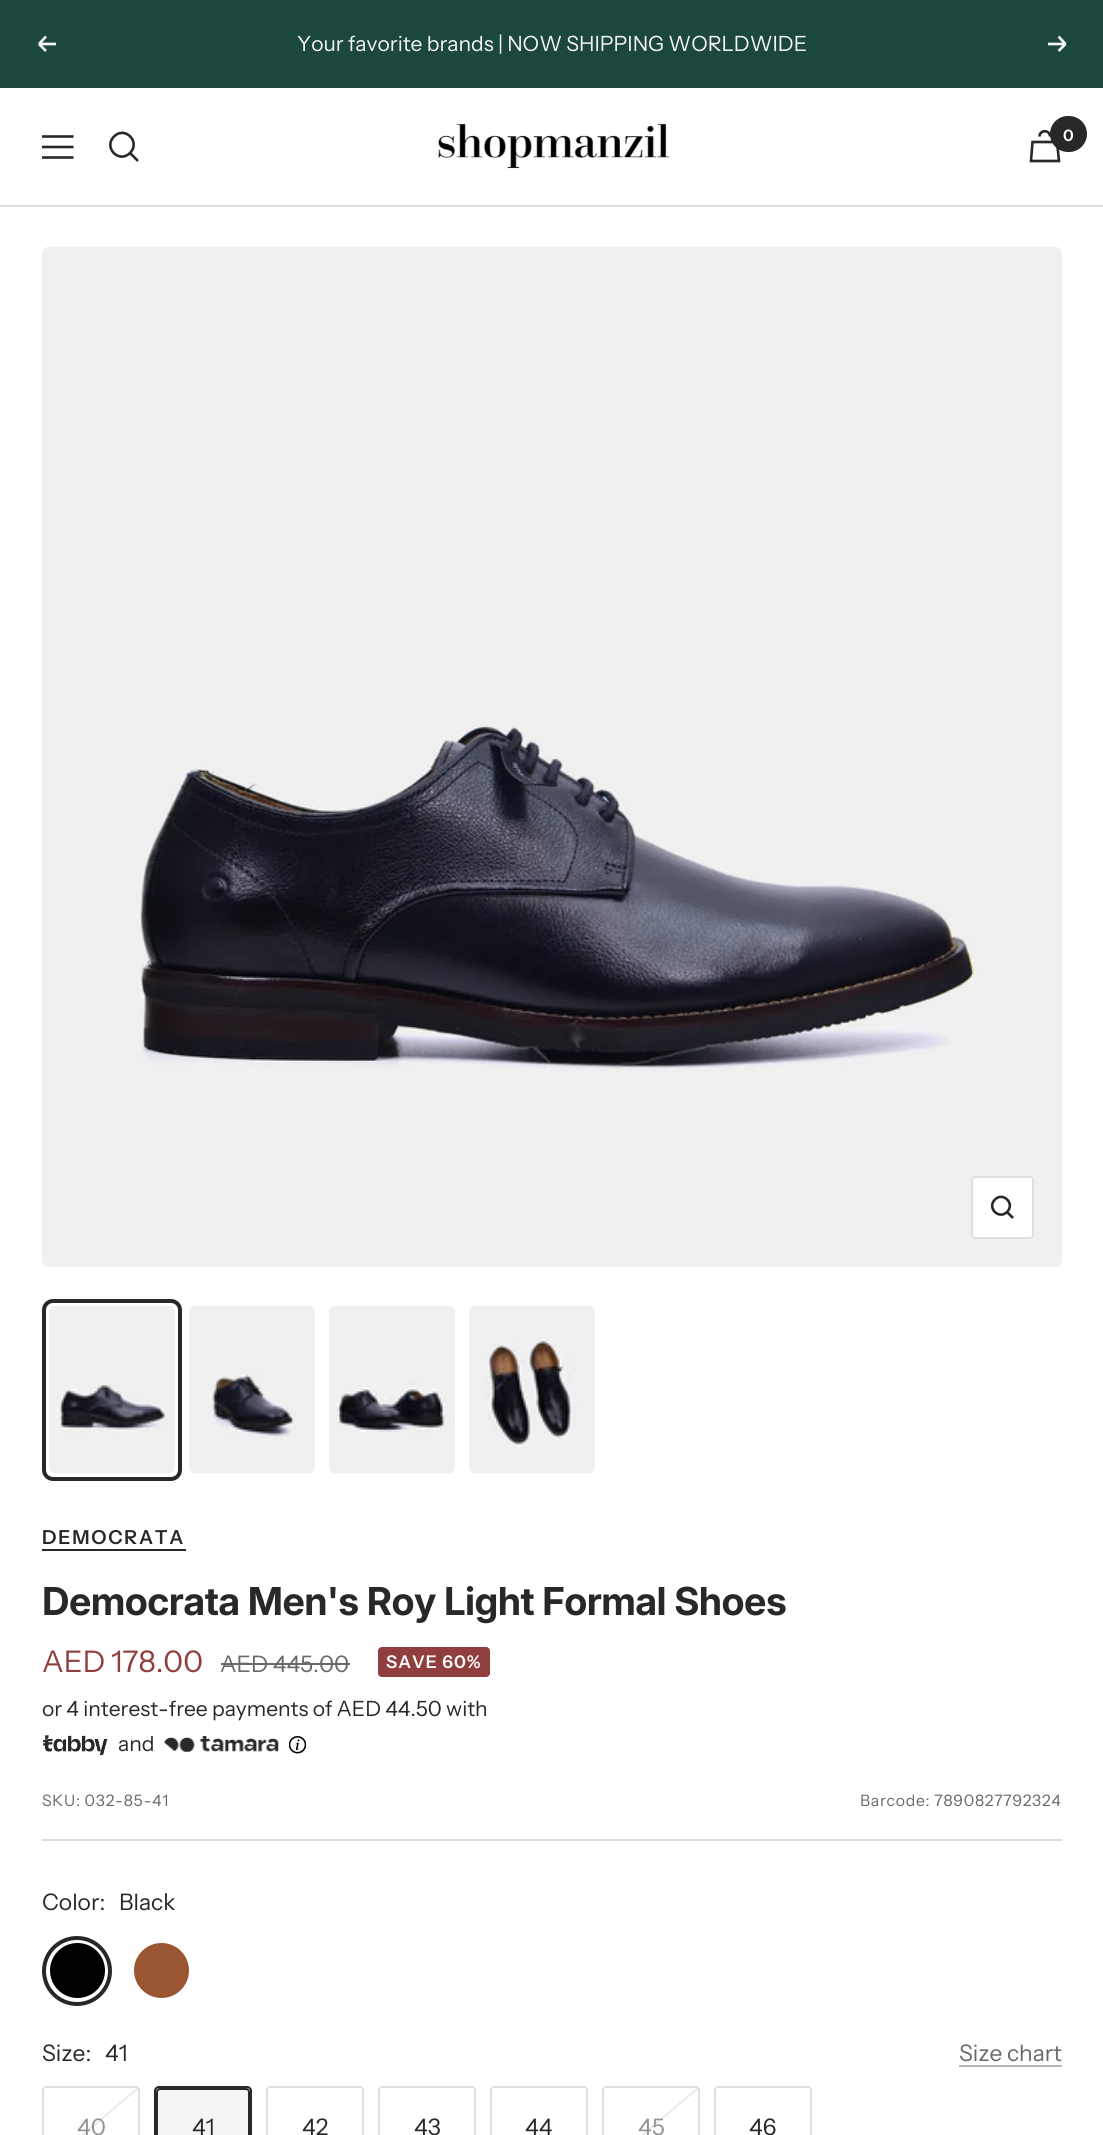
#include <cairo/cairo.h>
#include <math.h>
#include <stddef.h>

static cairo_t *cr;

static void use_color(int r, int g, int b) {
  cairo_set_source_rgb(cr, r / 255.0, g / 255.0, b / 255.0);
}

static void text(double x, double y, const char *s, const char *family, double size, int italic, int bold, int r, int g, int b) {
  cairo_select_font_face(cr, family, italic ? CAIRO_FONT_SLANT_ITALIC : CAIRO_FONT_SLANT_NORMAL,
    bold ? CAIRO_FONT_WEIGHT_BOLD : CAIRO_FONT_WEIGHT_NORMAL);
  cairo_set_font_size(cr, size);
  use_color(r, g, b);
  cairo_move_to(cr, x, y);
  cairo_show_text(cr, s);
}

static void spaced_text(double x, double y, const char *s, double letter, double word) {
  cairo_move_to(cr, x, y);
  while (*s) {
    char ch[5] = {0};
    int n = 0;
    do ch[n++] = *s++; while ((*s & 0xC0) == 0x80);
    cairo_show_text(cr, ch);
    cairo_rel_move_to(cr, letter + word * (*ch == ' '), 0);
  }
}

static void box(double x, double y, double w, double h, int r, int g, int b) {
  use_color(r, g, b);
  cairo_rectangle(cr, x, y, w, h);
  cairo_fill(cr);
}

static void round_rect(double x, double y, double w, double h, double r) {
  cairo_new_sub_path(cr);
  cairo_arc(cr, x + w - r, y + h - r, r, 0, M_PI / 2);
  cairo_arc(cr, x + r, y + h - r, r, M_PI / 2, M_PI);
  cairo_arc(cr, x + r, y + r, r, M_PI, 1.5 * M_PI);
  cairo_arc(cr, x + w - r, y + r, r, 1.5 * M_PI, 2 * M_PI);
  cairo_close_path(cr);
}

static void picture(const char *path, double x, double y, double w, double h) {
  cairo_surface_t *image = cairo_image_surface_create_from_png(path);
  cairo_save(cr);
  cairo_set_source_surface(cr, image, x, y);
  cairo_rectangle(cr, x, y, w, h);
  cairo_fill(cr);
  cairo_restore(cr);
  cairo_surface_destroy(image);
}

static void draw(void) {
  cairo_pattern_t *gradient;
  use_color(255, 255, 255);
  cairo_paint(cr);
  box(0, 0, 1103, 88, 28, 71, 63);
  cairo_new_path(cr);
  cairo_move_to(cr, 56, 44);
  cairo_line_to(cr, 39, 44);
  cairo_move_to(cr, 39, 44);
  cairo_line_to(cr, 46, 51);
  cairo_move_to(cr, 39, 44);
  cairo_line_to(cr, 46, 36.5);
  use_color(245, 245, 245);
  cairo_set_line_width(cr, 2.6);
  cairo_stroke(cr);
  cairo_new_path(cr);
  cairo_move_to(cr, 1048, 44);
  cairo_line_to(cr, 1065.5, 44);
  cairo_move_to(cr, 1065.5, 44);
  cairo_line_to(cr, 1058.5, 51);
  cairo_move_to(cr, 1065.5, 44);
  cairo_line_to(cr, 1058.5, 36.5);
  cairo_stroke(cr);
  box(0, 205, 1103, 2, 223, 223, 223);
  cairo_new_path(cr);
  cairo_move_to(cr, 42, 136.5);
  cairo_line_to(cr, 73.5, 136.5);
  cairo_move_to(cr, 42, 157.5);
  cairo_line_to(cr, 73.5, 157.5);
  cairo_close_path(cr);
  cairo_move_to(cr, 42, 147);
  cairo_line_to(cr, 73.5, 147);
  cairo_close_path(cr);
  use_color(40, 40, 40);
  cairo_stroke(cr);
  cairo_new_path(cr);
  cairo_move_to(cr, 130, 153);
  cairo_curve_to(cr, 141, 142, 125, 125.5, 114, 136.5);
  cairo_curve_to(cr, 103, 147.5, 119, 164, 130, 153);
  cairo_close_path(cr);
  cairo_move_to(cr, 130, 153);
  cairo_line_to(cr, 138, 161);
  cairo_stroke(cr);
  picture("img_01.png", 438, 122, 233, 47);
  cairo_new_path(cr);
  cairo_move_to(cr, 1032.5, 142);
  cairo_line_to(cr, 1057, 142);
  cairo_line_to(cr, 1059, 161);
  cairo_line_to(cr, 1031, 161);
  cairo_close_path(cr);
  cairo_move_to(cr, 1050, 136.5);
  cairo_curve_to(cr, 1050, 129.5, 1039.5, 129.5, 1039.5, 136.5);
  cairo_stroke(cr);
  round_rect(1050, 116, 37, 36, 18);
  cairo_fill(cr);
  picture("img_02.png", 42, 247, 1020, 1020);
  use_color(255, 255, 255);
  round_rect(972, 1177, 61, 61, 3);
  cairo_fill_preserve(cr);
  use_color(223, 223, 223);
  cairo_set_line_width(cr, 2);
  cairo_stroke(cr);
  cairo_new_path(cr);
  cairo_move_to(cr, 1007, 1212);
  cairo_curve_to(cr, 1015.5, 1203.5, 1003, 1191.5, 995, 1199.5);
  cairo_curve_to(cr, 986.5, 1208, 999, 1220, 1007, 1212);
  cairo_close_path(cr);
  cairo_move_to(cr, 1007, 1212);
  cairo_line_to(cr, 1013, 1218);
  use_color(40, 40, 40);
  cairo_set_line_width(cr, 2.6);
  cairo_stroke(cr);
  picture("img_03.png", 49, 1305, 126, 169);
  round_rect(44, 1301, 136, 178, 9);
  cairo_set_line_width(cr, 4);
  cairo_stroke(cr);
  picture("img_04.png", 189, 1305, 126, 169);
  picture("img_05.png", 329, 1305, 126, 169);
  picture("img_06.png", 469, 1305, 126, 169);
  box(42, 1839, 1020, 2, 223, 223, 223);
  box(42, 1549, 144, 2, 40, 40, 40);
  box(221, 1663, 129, 2, 105, 105, 105);
  use_color(145, 62, 62);
  round_rect(378, 1647, 112, 30, 4);
  cairo_fill(cr);
  picture("img_07.png", 43, 1735, 65, 21);
  picture("img_08.png", 164, 1736, 115, 16);
  picture("img_09.png", 289, 1736, 17, 18);
  use_color(0, 0, 0);
  cairo_arc(cr, 77, 1971, 32.5, 0, 2 * M_PI);
  cairo_fill_preserve(cr);
  use_color(255, 255, 255);
  cairo_set_line_width(cr, 5);
  cairo_stroke(cr);
  cairo_arc(cr, 77.5, 1970.5, 29.5, 0, 2 * M_PI);
  cairo_set_line_width(cr, 4);
  cairo_stroke(cr);
  cairo_arc(cr, 77, 1971, 33, 0, 2 * M_PI);
  use_color(40, 40, 40);
  cairo_stroke(cr);
  use_color(154, 86, 48);
  cairo_arc(cr, 161, 1971, 32.5, 0, 2 * M_PI);
  cairo_fill_preserve(cr);
  use_color(255, 255, 255);
  cairo_set_line_width(cr, 5);
  cairo_stroke(cr);
  cairo_arc(cr, 161.5, 1970.5, 29.5, 0, 2 * M_PI);
  cairo_set_line_width(cr, 4);
  cairo_stroke(cr);
  box(959, 2065, 103, 2, 180, 180, 180);
  gradient = cairo_pattern_create_linear(51, 2081, 131, 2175);
  cairo_pattern_add_color_stop_rgba(gradient, 0.49, 1, 1, 1, 1);
  cairo_pattern_add_color_stop_rgba(gradient, 0.5, 0.875, 0.875, 0.875, 1);
  cairo_pattern_add_color_stop_rgba(gradient, 0.51, 1, 1, 1, 1);
  cairo_set_source(cr, gradient);
  cairo_pattern_destroy(gradient);
  cairo_rectangle(cr, 82, 2088, 56, 47);
  cairo_fill(cr);
  round_rect(43, 2087, 96, 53, 3);
  use_color(223, 223, 223);
  cairo_set_line_width(cr, 2);
  cairo_stroke(cr);
  use_color(245, 245, 245);
  round_rect(155, 2087, 96, 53, 3);
  cairo_fill_preserve(cr);
  use_color(223, 223, 223);
  cairo_stroke(cr);
  round_rect(155, 2087, 96, 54, 4);
  use_color(40, 40, 40);
  cairo_stroke(cr);
  round_rect(157, 2089, 92, 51, 3);
  cairo_stroke(cr);
  round_rect(267, 2087, 96, 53, 3);
  use_color(223, 223, 223);
  cairo_stroke(cr);
  round_rect(379, 2087, 96, 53, 3);
  cairo_stroke(cr);
  round_rect(491, 2087, 96, 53, 3);
  cairo_stroke(cr);
  gradient = cairo_pattern_create_linear(611, 2081, 691, 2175);
  cairo_pattern_add_color_stop_rgba(gradient, 0.49, 1, 1, 1, 1);
  cairo_pattern_add_color_stop_rgba(gradient, 0.5, 0.875, 0.875, 0.875, 1);
  cairo_pattern_add_color_stop_rgba(gradient, 0.51, 1, 1, 1, 1);
  cairo_set_source(cr, gradient);
  cairo_pattern_destroy(gradient);
  cairo_rectangle(cr, 642, 2088, 56, 47);
  cairo_fill(cr);
  round_rect(603, 2087, 96, 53, 3);
  use_color(223, 223, 223);
  cairo_stroke(cr);
  round_rect(715, 2087, 96, 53, 3);
  cairo_stroke(cr);
  text(297, 51, "Your favorite brands | NOW SHIPPING WORLDWIDE", "Instrument Sans", 21, 0, 0, 245, 245, 245);
  text(1063, 141, "0", "Instrument Sans SemiBold", 15.75, 0, 0, 255, 255, 255);
  cairo_set_font_size(cr, 19.25);
  use_color(40, 40, 40);
  spaced_text(42, 1544, "DEMOCRATA", 1.75, 0);
  cairo_select_font_face(cr, "Inter", CAIRO_FONT_SLANT_NORMAL, CAIRO_FONT_WEIGHT_BOLD);
  cairo_set_font_size(cr, 38.5);
  spaced_text(42, 1615, "Democrata Men's Roy Light Formal Shoes", -0.55, 0);
  text(42, 1672, "AED 178.00", "Instrument Sans", 29.75, 0, 0, 145, 62, 62);
  text(220, 1672, "AED 445.00", "Instrument Sans", 22.75, 0, 0, 105, 105, 105);
  cairo_select_font_face(cr, "Instrument Sans SemiBold", CAIRO_FONT_SLANT_NORMAL, CAIRO_FONT_WEIGHT_NORMAL);
  cairo_set_font_size(cr, 17.5);
  use_color(255, 255, 255);
  spaced_text(386, 1668, "SAVE 60%", 1, 0);
  text(42, 1716, "or 4 interest-free payments of AED 44.50 with", "Instrument Sans", 21, 0, 0, 40, 40, 40);
  text(118, 1751, "and", "Instrument Sans", 21, 0, 0, 40, 40, 40);
  cairo_set_font_size(cr, 15.75);
  use_color(105, 105, 105);
  spaced_text(42, 1806, "SKU: 032-85-41", 0.75, 0);
  spaced_text(860, 1806, "Barcode: 7890827792324", 0.75, 0);
  text(42, 1910, "Color:", "Instrument Sans", 22.75, 0, 0, 40, 40, 40);
  text(119, 1910, "Black", "Instrument Sans", 22.75, 0, 0, 40, 40, 40);
  text(42, 2061, "Size:", "Instrument Sans", 22.75, 0, 0, 40, 40, 40);
  text(105, 2061, "41", "Instrument Sans", 22.75, 0, 0, 40, 40, 40);
  text(959, 2061, "Size chart", "Instrument Sans", 22.75, 0, 0, 105, 105, 105);
  text(77, 2135, "40", "Instrument Sans", 22.75, 0, 0, 146, 146, 146);
  text(192, 2135, "41", "Instrument Sans", 22.75, 0, 0, 40, 40, 40);
  text(302, 2135, "42", "Instrument Sans", 22.75, 0, 0, 40, 40, 40);
  text(414, 2135, "43", "Instrument Sans", 22.75, 0, 0, 40, 40, 40);
  text(525, 2135, "44", "Instrument Sans", 22.75, 0, 0, 40, 40, 40);
  text(638, 2135, "45", "Instrument Sans", 22.75, 0, 0, 146, 146, 146);
  text(749, 2135, "46", "Instrument Sans", 22.75, 0, 0, 40, 40, 40);
}

int main(void) {
  cairo_surface_t *surface = cairo_image_surface_create(CAIRO_FORMAT_RGB24, 1103, 2135);
  cr = cairo_create(surface);
  cairo_font_options_t *options = cairo_font_options_create();
  cairo_font_options_set_hint_metrics(options, CAIRO_HINT_METRICS_OFF);
  cairo_font_options_set_hint_style(options, CAIRO_HINT_STYLE_NONE);
  cairo_set_font_options(cr, options);
  cairo_set_miter_limit(cr, 4);
  draw();
  cairo_surface_write_to_png(surface, "out.png");
  cairo_font_options_destroy(options);
  cairo_destroy(cr);
  cairo_surface_destroy(surface);
  return 0;
}
